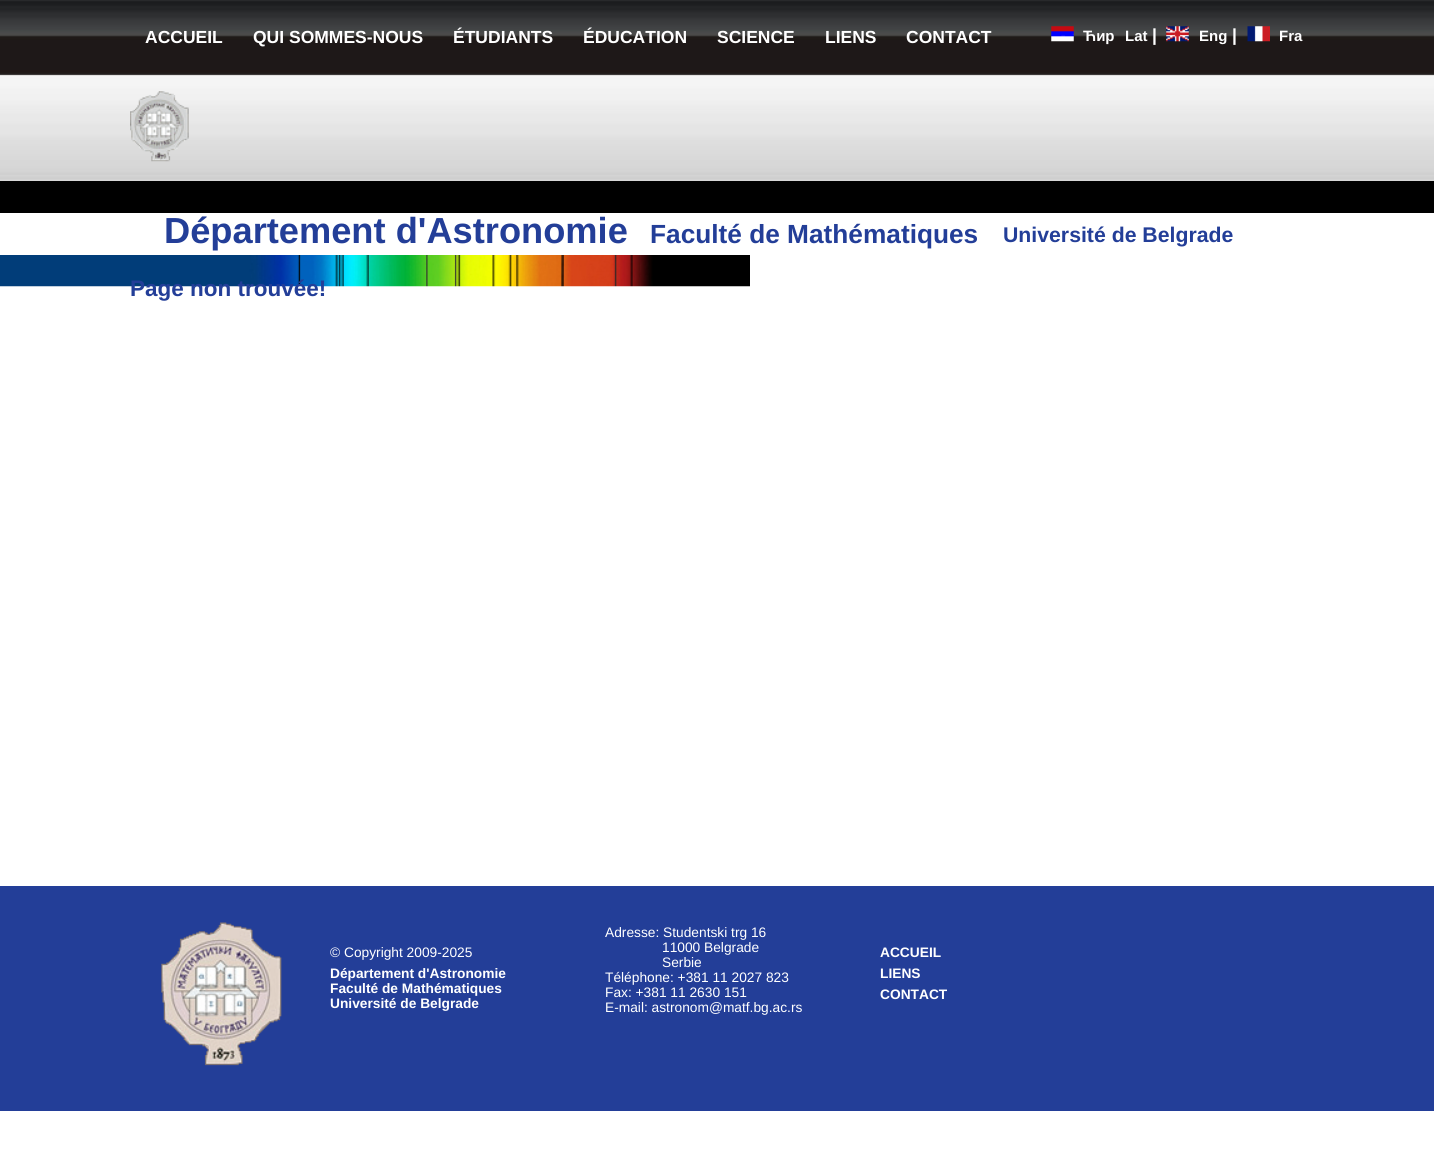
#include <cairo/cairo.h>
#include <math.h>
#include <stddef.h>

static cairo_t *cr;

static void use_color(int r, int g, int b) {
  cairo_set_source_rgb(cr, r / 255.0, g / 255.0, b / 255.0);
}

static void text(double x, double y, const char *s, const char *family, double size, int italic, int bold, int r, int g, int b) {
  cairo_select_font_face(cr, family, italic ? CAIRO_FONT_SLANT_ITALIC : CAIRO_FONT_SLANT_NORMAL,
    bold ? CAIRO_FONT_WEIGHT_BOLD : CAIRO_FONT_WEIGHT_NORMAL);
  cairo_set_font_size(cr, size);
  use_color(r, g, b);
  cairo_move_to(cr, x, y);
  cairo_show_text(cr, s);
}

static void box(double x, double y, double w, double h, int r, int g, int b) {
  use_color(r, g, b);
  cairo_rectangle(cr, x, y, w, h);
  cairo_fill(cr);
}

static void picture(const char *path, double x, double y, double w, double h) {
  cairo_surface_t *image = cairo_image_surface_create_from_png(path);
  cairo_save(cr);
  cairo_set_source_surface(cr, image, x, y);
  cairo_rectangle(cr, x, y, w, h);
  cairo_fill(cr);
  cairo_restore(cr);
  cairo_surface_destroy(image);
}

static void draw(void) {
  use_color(255, 255, 255);
  cairo_paint(cr);
  picture("img_01.png", 0, 0, 1434, 181);
  picture("img_02.png", 1051, 26, 23, 16);
  picture("img_03.png", 1166, 26, 23, 16);
  picture("img_04.png", 1247, 26, 23, 16);
  picture("img_05.png", 130, 91, 59, 71);
  box(0, 181, 1434, 32, 0, 0, 0);
  picture("img_06.png", 0, 255, 750, 32);
  box(0, 886, 1434, 225, 35, 62, 152);
  picture("img_07.png", 161, 922, 121, 144);
  text(145, 43, "ACCUEIL", "Liberation Sans", 17.5, 0, 1, 255, 255, 255);
  text(253, 43, "QUI SOMMES-NOUS", "Liberation Sans", 17.5, 0, 1, 255, 255, 255);
  text(453, 43, "ÉTUDIANTS", "Liberation Sans", 17.5, 0, 1, 255, 255, 255);
  text(583, 43, "ÉDUCATION", "Liberation Sans", 17.5, 0, 1, 255, 255, 255);
  text(717, 43, "SCIENCE", "Liberation Sans", 17.5, 0, 1, 255, 255, 255);
  text(825, 43, "LIENS", "Liberation Sans", 17.5, 0, 1, 255, 255, 255);
  text(906, 43, "CONTACT", "Liberation Sans", 17.5, 0, 1, 255, 255, 255);
  text(1083, 41, "Ћир", "Liberation Sans", 15, 0, 1, 255, 255, 255);
  text(1125, 41, "Lat", "Liberation Sans", 15, 0, 1, 255, 255, 255);
  text(1152, 41, "|", "Liberation Sans", 17.5, 0, 1, 255, 255, 255);
  text(1199, 41, "Eng", "Liberation Sans", 15, 0, 1, 255, 255, 255);
  text(1232, 41, "|", "Liberation Sans", 17.5, 0, 1, 255, 255, 255);
  text(1279, 41, "Fra", "Liberation Sans", 15, 0, 1, 255, 255, 255);
  text(164, 243, "Département d'Astronomie", "Liberation Sans", 36.25, 0, 1, 35, 62, 152);
  text(650, 243, "Faculté de Mathématiques", "Liberation Sans", 26.25, 0, 1, 35, 62, 152);
  text(1003, 242, "Université de Belgrade", "Liberation Sans", 21.25, 0, 1, 35, 62, 152);
  text(130, 296, "Page non trouvée!", "Liberation Sans", 22.5, 0, 1, 35, 62, 152);
  text(330, 957, "© Copyright 2009-2025", "Liberation Sans", 13.75, 0, 0, 255, 255, 255);
  text(330, 978, "Département d'Astronomie", "Liberation Sans", 13.75, 0, 1, 255, 255, 255);
  text(330, 993, "Faculté de Mathématiques", "Liberation Sans", 13.75, 0, 1, 255, 255, 255);
  text(330, 1008, "Université de Belgrade", "Liberation Sans", 13.75, 0, 1, 255, 255, 255);
  text(605, 937, "Adresse: Studentski trg 16", "Liberation Sans", 13.75, 0, 0, 255, 255, 255);
  text(662, 952, "11000 Belgrade", "Liberation Sans", 13.75, 0, 0, 255, 255, 255);
  text(662, 967, "Serbie", "Liberation Sans", 13.75, 0, 0, 255, 255, 255);
  text(605, 982, "Téléphone: +381 11 2027 823", "Liberation Sans", 13.75, 0, 0, 255, 255, 255);
  text(605, 997, "Fax: +381 11 2630 151", "Liberation Sans", 13.75, 0, 0, 255, 255, 255);
  text(605, 1012, "E-mail: astronom@matf.bg.ac.rs", "Liberation Sans", 13.75, 0, 0, 255, 255, 255);
  text(880, 957, "ACCUEIL", "Liberation Sans", 13.75, 0, 1, 255, 255, 255);
  text(880, 978, "LIENS", "Liberation Sans", 13.75, 0, 1, 255, 255, 255);
  text(880, 999, "CONTACT", "Liberation Sans", 13.75, 0, 1, 255, 255, 255);
}

int main(void) {
  cairo_surface_t *surface = cairo_image_surface_create(CAIRO_FORMAT_RGB24, 1434, 1171);
  cr = cairo_create(surface);
  cairo_font_options_t *options = cairo_font_options_create();
  cairo_font_options_set_hint_metrics(options, CAIRO_HINT_METRICS_OFF);
  cairo_font_options_set_hint_style(options, CAIRO_HINT_STYLE_NONE);
  cairo_set_font_options(cr, options);
  cairo_set_miter_limit(cr, 4);
  draw();
  cairo_surface_write_to_png(surface, "out.png");
  cairo_font_options_destroy(options);
  cairo_destroy(cr);
  cairo_surface_destroy(surface);
  return 0;
}
